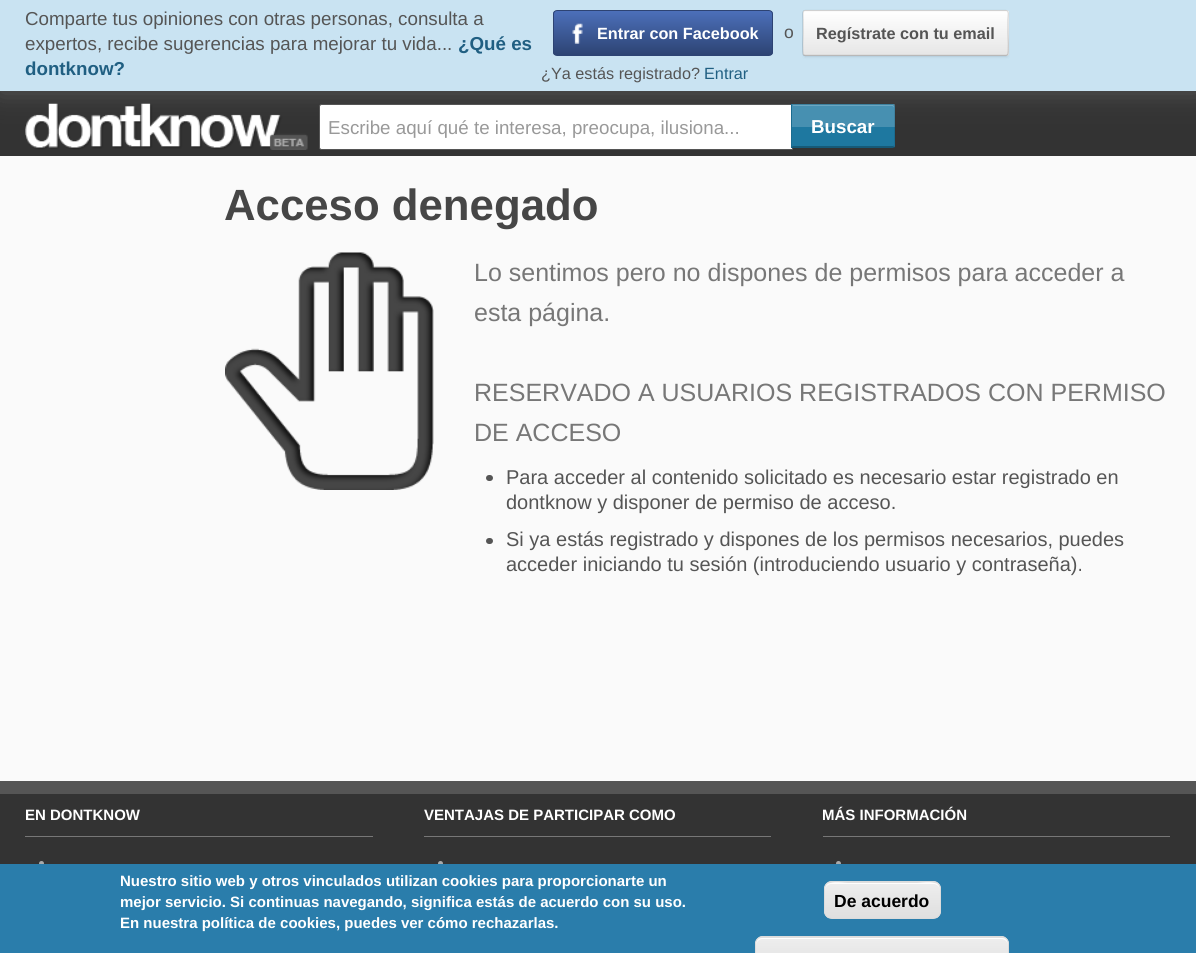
#include <cairo/cairo.h>
#include <math.h>
#include <stddef.h>

static cairo_t *cr;

static void use_color(int r, int g, int b) {
  cairo_set_source_rgb(cr, r / 255.0, g / 255.0, b / 255.0);
}

static void text(double x, double y, const char *s, const char *family, double size, int italic, int bold, int r, int g, int b) {
  cairo_select_font_face(cr, family, italic ? CAIRO_FONT_SLANT_ITALIC : CAIRO_FONT_SLANT_NORMAL,
    bold ? CAIRO_FONT_WEIGHT_BOLD : CAIRO_FONT_WEIGHT_NORMAL);
  cairo_set_font_size(cr, size);
  use_color(r, g, b);
  cairo_move_to(cr, x, y);
  cairo_show_text(cr, s);
}

static void box(double x, double y, double w, double h, int r, int g, int b) {
  use_color(r, g, b);
  cairo_rectangle(cr, x, y, w, h);
  cairo_fill(cr);
}

static void round_rect(double x, double y, double w, double h, double r) {
  cairo_new_sub_path(cr);
  cairo_arc(cr, x + w - r, y + h - r, r, 0, M_PI / 2);
  cairo_arc(cr, x + r, y + h - r, r, M_PI / 2, M_PI);
  cairo_arc(cr, x + r, y + r, r, M_PI, 1.5 * M_PI);
  cairo_arc(cr, x + w - r, y + r, r, 1.5 * M_PI, 2 * M_PI);
  cairo_close_path(cr);
}

static void shadow(double x, double y, double w, double h, double r, double blur, double alpha) {
  cairo_push_group_with_content(cr, CAIRO_CONTENT_ALPHA);
  cairo_set_operator(cr, CAIRO_OPERATOR_SOURCE);
  for (int i = 15; i >= -15 && fmin(w, h) + blur * i / 3 > 0; i -= 2) {
    double e = blur * i / 6;
    cairo_set_source_rgba(cr, 0, 0, 0, alpha * erfc((i - 1) / 8.5) / 2);
    round_rect(x - e, y - e, w + 2 * e, h + 2 * e, fmax(0, fmin(r + e + blur * .6, fmin(w, h) / 2 + e)));
    cairo_fill(cr);
  }
  cairo_pattern_t *soft = cairo_pop_group(cr);
  cairo_mask(cr, soft);
  cairo_pattern_destroy(soft);
}

static void picture(const char *path, double x, double y, double w, double h) {
  cairo_surface_t *image = cairo_image_surface_create_from_png(path);
  cairo_save(cr);
  cairo_set_source_surface(cr, image, x, y);
  cairo_rectangle(cr, x, y, w, h);
  cairo_fill(cr);
  cairo_restore(cr);
  cairo_surface_destroy(image);
}

static void draw(void) {
  cairo_pattern_t *gradient;
  use_color(250, 250, 250);
  cairo_paint(cr);
  box(0, 91, 1196, 65, 51, 51, 51);
  use_color(85, 85, 85);
  shadow(0, -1, 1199, 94, 0, 12.5, 1);
  box(0, 0, 1196, 91, 201, 227, 242);
  cairo_save(cr);
  round_rect(553, 10, 220, 46, 4);
  cairo_clip(cr);
  gradient = cairo_pattern_create_linear(663, 11, 663, 55);
  cairo_pattern_add_color_stop_rgba(gradient, 0, 0.298, 0.439, 0.729, 1);
  cairo_pattern_add_color_stop_rgba(gradient, 1, 0.176, 0.263, 0.451, 1);
  cairo_set_source(cr, gradient);
  cairo_pattern_destroy(gradient);
  cairo_rectangle(cr, 553, 11, 220, 44);
  cairo_fill(cr);
  cairo_restore(cr);
  round_rect(553.5, 10.5, 219, 45, 3.5);
  use_color(45, 67, 115);
  cairo_set_line_width(cr, 1);
  cairo_stroke(cr);
  picture("img_01.png", 572, 23, 11, 21);
  use_color(0, 0, 0);
  shadow(803, 11, 206, 47, 2.5, 1, 0.05);
  use_color(245, 245, 245);
  round_rect(803, 10, 206, 46, 2.5);
  cairo_fill(cr);
  cairo_save(cr);
  round_rect(803, 10, 206, 46, 2.5);
  cairo_clip(cr);
  gradient = cairo_pattern_create_linear(906, 11, 906, 55);
  cairo_pattern_add_color_stop_rgba(gradient, 0, 1, 1, 1, 1);
  cairo_pattern_add_color_stop_rgba(gradient, 1, 0.902, 0.902, 0.902, 1);
  cairo_set_source(cr, gradient);
  cairo_pattern_destroy(gradient);
  cairo_rectangle(cr, 803, 11, 206, 44);
  cairo_fill(cr);
  cairo_restore(cr);
  cairo_new_path(cr);
  cairo_move_to(cr, 1007.5, 55);
  cairo_line_to(cr, 1006, 55.5);
  cairo_line_to(cr, 805, 55.5);
  cairo_line_to(cr, 803.5, 55);
  cairo_set_source_rgba(cr, 0, 0, 0, 0.25);
  cairo_set_line_width(cr, 1.2);
  cairo_stroke(cr);
  cairo_new_path(cr);
  cairo_move_to(cr, 803.5, 55);
  cairo_curve_to(cr, 802, 53.5, 803, 36, 803, 33);
  cairo_line_to(cr, 803, 19.5);
  cairo_curve_to(cr, 803, 16, 802, 10.5, 805, 10.5);
  cairo_line_to(cr, 1006, 10.5);
  cairo_curve_to(cr, 1009.5, 10.5, 1008, 16, 1008, 19.5);
  cairo_line_to(cr, 1008, 33);
  cairo_curve_to(cr, 1008, 36, 1009, 53.5, 1007.5, 55);
  cairo_set_source_rgba(cr, 0, 0, 0, 0.15);
  cairo_stroke(cr);
  picture("img_02.png", 25, 103, 283, 47);
  use_color(255, 255, 255);
  cairo_new_path(cr);
  cairo_move_to(cr, 321.5, 104.5);
  cairo_line_to(cr, 792.5, 104.5);
  cairo_line_to(cr, 792.5, 149.5);
  cairo_line_to(cr, 321.5, 149.5);
  cairo_curve_to(cr, 320.5, 149.5, 319.5, 148.5, 319.5, 147.5);
  cairo_line_to(cr, 319.5, 106.5);
  cairo_curve_to(cr, 319.5, 105.5, 320.5, 104.5, 321.5, 104.5);
  cairo_close_path(cr);
  cairo_fill_preserve(cr);
  use_color(85, 85, 85);
  cairo_set_line_width(cr, 1);
  cairo_stroke(cr);
  use_color(30, 120, 160);
  cairo_new_path(cr);
  cairo_move_to(cr, 791, 104);
  cairo_line_to(cr, 892.5, 104);
  cairo_curve_to(cr, 894, 104, 895, 105, 895, 106.5);
  cairo_line_to(cr, 895, 145.5);
  cairo_curve_to(cr, 895, 147, 894, 148, 892.5, 148);
  cairo_line_to(cr, 791, 148);
  cairo_close_path(cr);
  cairo_fill(cr);
  cairo_set_source_rgba(cr, 1, 1, 1, 0.18);
  cairo_rectangle(cr, 792, 104, 103, 23);
  cairo_fill(cr);
  use_color(107, 166, 193);
  cairo_new_path(cr);
  cairo_move_to(cr, 793, 105);
  cairo_line_to(cr, 793, 106);
  cairo_line_to(cr, 892, 106);
  cairo_curve_to(cr, 893, 106, 894, 107, 894, 108);
  cairo_curve_to(cr, 894, 107, 894, 105, 893, 105);
  cairo_close_path(cr);
  cairo_fill(cr);
  use_color(63, 130, 159);
  cairo_new_path(cr);
  cairo_move_to(cr, 894, 105);
  cairo_line_to(cr, 892, 104);
  cairo_line_to(cr, 792, 104);
  cairo_line_to(cr, 792, 105);
  cairo_line_to(cr, 892, 105);
  cairo_line_to(cr, 893, 105);
  cairo_close_path(cr);
  cairo_fill(cr);
  cairo_set_source_rgba(cr, 0, 0, 0, 0.1);
  cairo_new_path(cr);
  cairo_move_to(cr, 894, 105);
  cairo_line_to(cr, 895, 105);
  cairo_curve_to(cr, 895, 106, 896, 145, 894, 147);
  cairo_line_to(cr, 893, 146);
  cairo_line_to(cr, 894, 145);
  cairo_line_to(cr, 894, 106);
  cairo_line_to(cr, 893, 105);
  cairo_close_path(cr);
  cairo_fill(cr);
  cairo_set_source_rgba(cr, 0, 0, 0, 0.25);
  cairo_new_path(cr);
  cairo_move_to(cr, 894, 147);
  cairo_line_to(cr, 894, 148);
  cairo_line_to(cr, 791, 148);
  cairo_line_to(cr, 793, 146);
  cairo_line_to(cr, 893, 146);
  cairo_close_path(cr);
  cairo_fill(cr);
  cairo_set_source_rgba(cr, 0, 0, 0, 0.1);
  cairo_new_path(cr);
  cairo_move_to(cr, 792, 105);
  cairo_line_to(cr, 791, 104);
  cairo_line_to(cr, 791, 148);
  cairo_line_to(cr, 793, 146);
  cairo_line_to(cr, 792, 146);
  cairo_close_path(cr);
  cairo_fill(cr);
  picture("img_03.png", 225, 252, 209, 238);
  use_color(85, 85, 85);
  round_rect(486, 475, 7, 6, 3);
  cairo_fill(cr);
  round_rect(486, 538, 7, 6, 3);
  cairo_fill(cr);
  box(0, 781, 1196, 13, 85, 85, 85);
  box(0, 794, 1196, 70, 51, 51, 51);
  box(25, 836, 348, 1, 119, 119, 119);
  use_color(170, 170, 170);
  cairo_arc(cr, 41.5, 863.5, 2.5, 0, 2 * M_PI);
  cairo_fill(cr);
  box(424, 836, 347, 1, 119, 119, 119);
  use_color(170, 170, 170);
  cairo_arc(cr, 440.5, 863.5, 2.5, 0, 2 * M_PI);
  cairo_fill(cr);
  box(823, 836, 347, 1, 119, 119, 119);
  use_color(170, 170, 170);
  cairo_arc(cr, 838.5, 863.5, 2.5, 0, 2 * M_PI);
  cairo_fill(cr);
  box(0, 864, 1196, 89, 42, 125, 171);
  cairo_save(cr);
  round_rect(824, 881, 117, 38, 8);
  cairo_clip(cr);
  gradient = cairo_pattern_create_linear(825, 848, 825, 883);
  cairo_pattern_add_color_stop_rgba(gradient, 0.05, 0.929, 0.929, 0.929, 1);
  cairo_pattern_add_color_stop_rgba(gradient, 1, 0.875, 0.875, 0.875, 1);
  cairo_set_source(cr, gradient);
  cairo_pattern_destroy(gradient);
  cairo_rectangle(cr, 824, 881, 117, 2);
  cairo_fill(cr);
  gradient = cairo_pattern_create_linear(825, 883, 825, 918);
  cairo_pattern_add_color_stop_rgba(gradient, 0.05, 0.929, 0.929, 0.929, 1);
  cairo_pattern_add_color_stop_rgba(gradient, 1, 0.875, 0.875, 0.875, 1);
  cairo_set_source(cr, gradient);
  cairo_pattern_destroy(gradient);
  cairo_rectangle(cr, 824, 883, 117, 35);
  cairo_fill(cr);
  cairo_restore(cr);
  use_color(255, 255, 255);
  cairo_new_path(cr);
  cairo_move_to(cr, 831, 884);
  cairo_line_to(cr, 934, 884);
  cairo_curve_to(cr, 937, 884, 940, 887, 940, 890);
  cairo_curve_to(cr, 940, 879, 923, 883, 917, 883);
  cairo_line_to(cr, 848, 883);
  cairo_curve_to(cr, 842, 883, 825, 879, 825, 890);
  cairo_curve_to(cr, 825, 887, 828, 884, 831, 884);
  cairo_close_path(cr);
  cairo_fill(cr);
  round_rect(824.5, 881.5, 116, 37, 7.5);
  use_color(220, 220, 220);
  cairo_stroke(cr);
  cairo_save(cr);
  round_rect(755, 936, 254, 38, 8);
  cairo_clip(cr);
  gradient = cairo_pattern_create_linear(756, 903, 756, 938);
  cairo_pattern_add_color_stop_rgba(gradient, 0.05, 0.929, 0.929, 0.929, 1);
  cairo_pattern_add_color_stop_rgba(gradient, 1, 0.875, 0.875, 0.875, 1);
  cairo_set_source(cr, gradient);
  cairo_pattern_destroy(gradient);
  cairo_rectangle(cr, 755, 936, 254, 2);
  cairo_fill(cr);
  gradient = cairo_pattern_create_linear(756, 938, 756, 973);
  cairo_pattern_add_color_stop_rgba(gradient, 0.05, 0.929, 0.929, 0.929, 1);
  cairo_pattern_add_color_stop_rgba(gradient, 1, 0.875, 0.875, 0.875, 1);
  cairo_set_source(cr, gradient);
  cairo_pattern_destroy(gradient);
  cairo_rectangle(cr, 755, 938, 254, 15);
  cairo_fill(cr);
  cairo_restore(cr);
  use_color(255, 255, 255);
  cairo_new_path(cr);
  cairo_move_to(cr, 762, 939);
  cairo_line_to(cr, 1001, 939);
  cairo_curve_to(cr, 1005, 939, 1008, 942, 1008, 945);
  cairo_line_to(cr, 1008, 944);
  cairo_curve_to(cr, 1008, 941, 1005, 938, 1002, 938);
  cairo_line_to(cr, 762, 938);
  cairo_curve_to(cr, 759, 938, 756, 941, 756, 944);
  cairo_line_to(cr, 756, 945);
  cairo_curve_to(cr, 756, 942, 759, 939, 762, 939);
  cairo_close_path(cr);
  cairo_fill(cr);
  round_rect(755.5, 936.5, 253, 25, 7.5);
  use_color(220, 220, 220);
  cairo_stroke(cr);
  text(25, 25, "Comparte tus opiniones con otras personas, consulta a", "Liberation Sans", 18.75, 0, 0, 85, 85, 85);
  text(25, 50, "expertos, recibe sugerencias para mejorar tu vida...", "Liberation Sans", 18.75, 0, 0, 85, 85, 85);
  text(458, 50, "¿Qué es", "Liberation Sans", 18.75, 0, 1, 32, 95, 130);
  text(25, 75, "dontknow?", "Liberation Sans", 18.75, 0, 1, 32, 95, 130);
  text(597, 39, "Entrar con Facebook", "Liberation Sans", 16.25, 0, 1, 255, 255, 255);
  text(784, 38, "o", "Liberation Sans", 17.5, 0, 0, 85, 85, 85);
  text(816, 39, "Regístrate con tu email", "Liberation Sans", 16.25, 0, 1, 85, 85, 85);
  text(541, 79, "¿Ya estás registrado?", "Liberation Sans", 16.25, 0, 0, 85, 85, 85);
  text(704, 79, "Entrar", "Liberation Sans", 16.25, 0, 0, 32, 95, 130);
  text(328, 134, "Escribe aquí qué te interesa, preocupa, ilusiona...", "Liberation Sans", 18.75, 0, 0, 153, 153, 153);
  text(811, 133, "Buscar", "Liberation Sans", 18.75, 0, 1, 255, 255, 255);
  text(224, 220, "Acceso denegado", "Liberation Sans", 43.75, 0, 1, 70, 70, 70);
  text(474, 281, "Lo sentimos pero no dispones de permisos para acceder a", "Liberation Sans", 25, 0, 0, 119, 119, 119);
  text(474, 321, "esta página.", "Liberation Sans", 25, 0, 0, 119, 119, 119);
  text(474, 401, "RESERVADO A USUARIOS REGISTRADOS CON PERMISO", "Liberation Sans", 25, 0, 0, 119, 119, 119);
  text(474, 441, "DE ACCESO", "Liberation Sans", 25, 0, 0, 119, 119, 119);
  text(506, 484, "Para acceder al contenido solicitado es necesario estar registrado en", "Liberation Sans", 20, 0, 0, 85, 85, 85);
  text(506, 509, "dontknow y disponer de permiso de acceso.", "Liberation Sans", 20, 0, 0, 85, 85, 85);
  text(506, 546, "Si ya estás registrado y dispones de los permisos necesarios, puedes", "Liberation Sans", 20, 0, 0, 85, 85, 85);
  text(506, 571, "acceder iniciando tu sesión (introduciendo usuario y contraseña).", "Liberation Sans", 20, 0, 0, 85, 85, 85);
  text(25, 820, "EN DONTKNOW", "Liberation Sans", 15, 0, 1, 255, 255, 255);
  text(424, 820, "VENTAJAS DE PARTICIPAR COMO", "Liberation Sans", 15, 0, 1, 255, 255, 255);
  text(822, 820, "MÁS INFORMACIÓN", "Liberation Sans", 15, 0, 1, 255, 255, 255);
  text(120, 886, "Nuestro sitio web y otros vinculados utilizan cookies para proporcionarte un", "Liberation Sans", 15, 0, 1, 255, 255, 255);
  text(120, 907, "mejor servicio. Si continuas navegando, significa estás de acuerdo con su uso.", "Liberation Sans", 15, 0, 1, 255, 255, 255);
  text(120, 928, "En nuestra política de cookies, puedes ver cómo rechazarlas.", "Liberation Sans", 15, 0, 1, 255, 255, 255);
  text(834, 907, "De acuerdo", "Liberation Sans", 17.5, 0, 1, 0, 0, 0);
}

int main(void) {
  cairo_surface_t *surface = cairo_image_surface_create(CAIRO_FORMAT_RGB24, 1196, 953);
  cr = cairo_create(surface);
  cairo_font_options_t *options = cairo_font_options_create();
  cairo_font_options_set_hint_metrics(options, CAIRO_HINT_METRICS_OFF);
  cairo_font_options_set_hint_style(options, CAIRO_HINT_STYLE_NONE);
  cairo_set_font_options(cr, options);
  cairo_set_miter_limit(cr, 4);
  draw();
  cairo_surface_write_to_png(surface, "out.png");
  cairo_font_options_destroy(options);
  cairo_destroy(cr);
  cairo_surface_destroy(surface);
  return 0;
}
